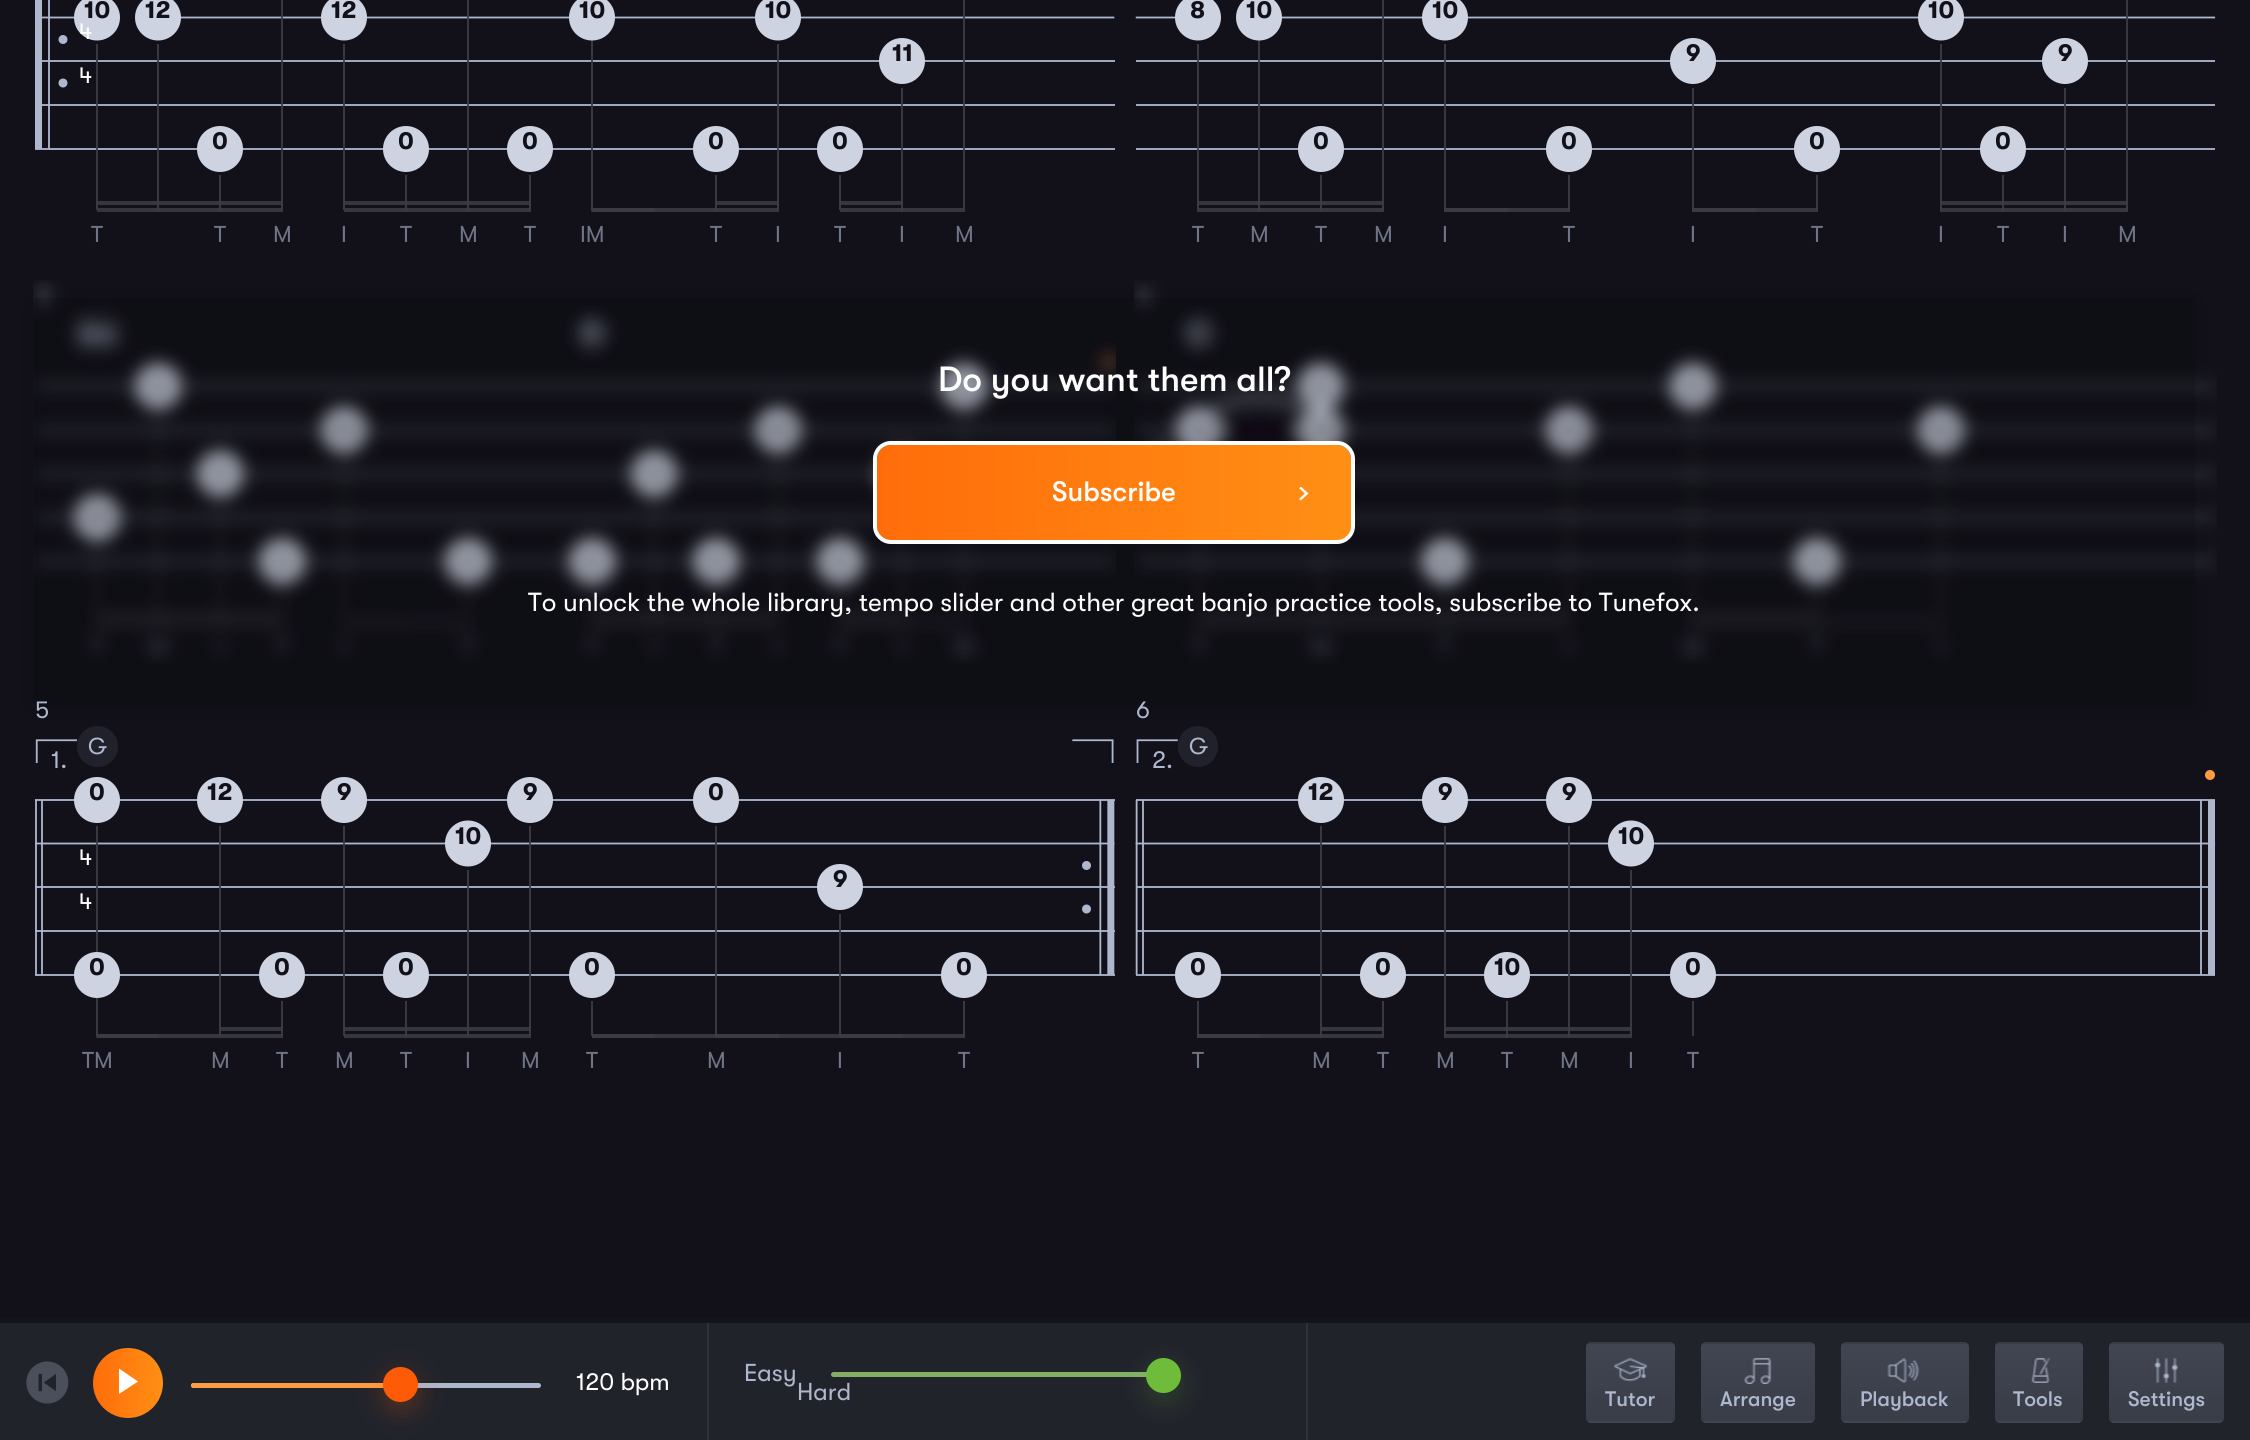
#include <cairo/cairo.h>
#include <math.h>
#include <stddef.h>

static cairo_t *cr;

static void use_color(int r, int g, int b) {
  cairo_set_source_rgb(cr, r / 255.0, g / 255.0, b / 255.0);
}

static void text(double x, double y, const char *s, const char *family, double size, int italic, int bold, int r, int g, int b) {
  cairo_select_font_face(cr, family, italic ? CAIRO_FONT_SLANT_ITALIC : CAIRO_FONT_SLANT_NORMAL,
    bold ? CAIRO_FONT_WEIGHT_BOLD : CAIRO_FONT_WEIGHT_NORMAL);
  cairo_set_font_size(cr, size);
  use_color(r, g, b);
  cairo_move_to(cr, x, y);
  cairo_show_text(cr, s);
}

static void box(double x, double y, double w, double h, int r, int g, int b) {
  use_color(r, g, b);
  cairo_rectangle(cr, x, y, w, h);
  cairo_fill(cr);
}

static void round_rect(double x, double y, double w, double h, double r) {
  cairo_new_sub_path(cr);
  cairo_arc(cr, x + w - r, y + h - r, r, 0, M_PI / 2);
  cairo_arc(cr, x + r, y + h - r, r, M_PI / 2, M_PI);
  cairo_arc(cr, x + r, y + r, r, M_PI, 1.5 * M_PI);
  cairo_arc(cr, x + w - r, y + r, r, 1.5 * M_PI, 2 * M_PI);
  cairo_close_path(cr);
}

static void shadow(double x, double y, double w, double h, double r, double blur, double alpha) {
  cairo_push_group_with_content(cr, CAIRO_CONTENT_ALPHA);
  cairo_set_operator(cr, CAIRO_OPERATOR_SOURCE);
  for (int i = 15; i >= -15 && fmin(w, h) + blur * i / 3 > 0; i -= 2) {
    double e = blur * i / 6;
    cairo_set_source_rgba(cr, 0, 0, 0, alpha * erfc((i - 1) / 8.5) / 2);
    round_rect(x - e, y - e, w + 2 * e, h + 2 * e, fmax(0, fmin(r + e + blur * .6, fmin(w, h) / 2 + e)));
    cairo_fill(cr);
  }
  cairo_pattern_t *soft = cairo_pop_group(cr);
  cairo_mask(cr, soft);
  cairo_pattern_destroy(soft);
}

static void picture(const char *path, double x, double y, double w, double h) {
  cairo_surface_t *image = cairo_image_surface_create_from_png(path);
  cairo_save(cr);
  cairo_set_source_surface(cr, image, x, y);
  cairo_rectangle(cr, x, y, w, h);
  cairo_fill(cr);
  cairo_restore(cr);
  cairo_surface_destroy(image);
}

static void draw(void) {
  cairo_pattern_t *gradient;
  use_color(18, 17, 26);
  cairo_paint(cr);
  picture("img_01.png", 35, 0, 1080, 212);
  picture("img_02.png", 1135, 0, 1081, 212);
  picture("img_03.png", 1134, 280, 1083, 384);
  picture("img_04.png", 33, 280, 1083, 384);
  picture("img_06.png", 35, 726, 1080, 312);
  picture("img_07.png", 1135, 726, 1081, 312);
  cairo_save(cr);
  cairo_set_fill_rule(cr, CAIRO_FILL_RULE_EVEN_ODD);
  cairo_new_path(cr);
  cairo_move_to(cr, 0, 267);
  cairo_line_to(cr, 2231, 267);
  cairo_line_to(cr, 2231, 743);
  cairo_line_to(cr, 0, 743);
  cairo_close_path(cr);
  cairo_move_to(cr, 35, 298);
  cairo_line_to(cr, 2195, 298);
  cairo_line_to(cr, 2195, 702);
  cairo_line_to(cr, 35, 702);
  cairo_close_path(cr);
  cairo_clip(cr);
  use_color(0, 0, 0);
  shadow(35, 303, 2160, 404, 0, 11.5, 0.2);
  cairo_restore(cr);
  box(0, 1323, 2250, 117, 33, 35, 43);
  box(0, 1318, 2250, 5, 20, 21, 26);
  picture("img_08.png", 26, 1361, 43, 43);
  gradient = cairo_pattern_create_linear(93, 1383, 163, 1383);
  cairo_pattern_add_color_stop_rgba(gradient, 0, 1, 0.427, 0.039, 1);
  cairo_pattern_add_color_stop_rgba(gradient, 1, 1, 0.561, 0.082, 1);
  cairo_set_source(cr, gradient);
  cairo_pattern_destroy(gradient);
  cairo_arc(cr, 128, 1383, 35, 0, 2 * M_PI);
  cairo_fill(cr);
  use_color(255, 255, 255);
  cairo_set_fill_rule(cr, CAIRO_FILL_RULE_EVEN_ODD);
  cairo_new_path(cr);
  cairo_move_to(cr, 119, 1368.5);
  cairo_line_to(cr, 138, 1381.5);
  cairo_line_to(cr, 119, 1394);
  cairo_close_path(cr);
  cairo_fill(cr);
  use_color(173, 183, 206);
  round_rect(191, 1383, 350, 5, 2.5);
  cairo_fill(cr);
  use_color(255, 156, 65);
  round_rect(191, 1383, 210, 5, 2.5);
  cairo_fill(cr);
  use_color(254, 91, 6);
  shadow(382, 1374, 38, 38, 19, 12, 0.2);
  use_color(254, 91, 6);
  cairo_arc(cr, 400.5, 1384.5, 17.5, 0, 2 * M_PI);
  cairo_fill(cr);
  box(707, 1323, 2, 117, 47, 50, 59);
  use_color(131, 175, 101);
  round_rect(831, 1372, 333, 5, 2.5);
  cairo_fill(cr);
  use_color(110, 188, 57);
  shadow(1145, 1365, 38, 39, 19, 12, 0.15);
  use_color(110, 188, 57);
  cairo_arc(cr, 1163.5, 1375.5, 17.5, 0, 2 * M_PI);
  cairo_fill(cr);
  box(1306, 1323, 2, 117, 47, 50, 59);
  cairo_save(cr);
  cairo_set_fill_rule(cr, CAIRO_FILL_RULE_WINDING);
  round_rect(1586, 1342, 89, 81, 5);
  cairo_clip(cr);
  gradient = cairo_pattern_create_linear(1630, 1344, 1630, 1267);
  cairo_pattern_add_color_stop_rgba(gradient, 0, 0.224, 0.239, 0.282, 1);
  cairo_pattern_add_color_stop_rgba(gradient, 1, 0.255, 0.271, 0.318, 1);
  cairo_set_source(cr, gradient);
  cairo_pattern_destroy(gradient);
  cairo_rectangle(cr, 1586, 1342, 89, 2);
  cairo_fill(cr);
  gradient = cairo_pattern_create_linear(1630, 1421, 1630, 1344);
  cairo_pattern_add_color_stop_rgba(gradient, 0, 0.224, 0.239, 0.282, 1);
  cairo_pattern_add_color_stop_rgba(gradient, 1, 0.255, 0.271, 0.318, 1);
  cairo_set_source(cr, gradient);
  cairo_pattern_destroy(gradient);
  cairo_rectangle(cr, 1586, 1344, 89, 77);
  cairo_fill(cr);
  gradient = cairo_pattern_create_linear(1630, 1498, 1630, 1421);
  cairo_pattern_add_color_stop_rgba(gradient, 0, 0.224, 0.239, 0.282, 1);
  cairo_pattern_add_color_stop_rgba(gradient, 1, 0.255, 0.271, 0.318, 1);
  cairo_set_source(cr, gradient);
  cairo_pattern_destroy(gradient);
  cairo_rectangle(cr, 1586, 1421, 89, 2);
  cairo_fill(cr);
  cairo_restore(cr);
  picture("img_09.png", 1614, 1358, 34, 24);
  cairo_save(cr);
  cairo_set_fill_rule(cr, CAIRO_FILL_RULE_WINDING);
  round_rect(1701, 1342, 114, 81, 5);
  cairo_clip(cr);
  gradient = cairo_pattern_create_linear(1758, 1344, 1758, 1267);
  cairo_pattern_add_color_stop_rgba(gradient, 0, 0.224, 0.239, 0.282, 1);
  cairo_pattern_add_color_stop_rgba(gradient, 1, 0.255, 0.271, 0.318, 1);
  cairo_set_source(cr, gradient);
  cairo_pattern_destroy(gradient);
  cairo_rectangle(cr, 1701, 1342, 114, 2);
  cairo_fill(cr);
  gradient = cairo_pattern_create_linear(1758, 1421, 1758, 1344);
  cairo_pattern_add_color_stop_rgba(gradient, 0, 0.224, 0.239, 0.282, 1);
  cairo_pattern_add_color_stop_rgba(gradient, 1, 0.255, 0.271, 0.318, 1);
  cairo_set_source(cr, gradient);
  cairo_pattern_destroy(gradient);
  cairo_rectangle(cr, 1701, 1344, 114, 77);
  cairo_fill(cr);
  gradient = cairo_pattern_create_linear(1758, 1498, 1758, 1421);
  cairo_pattern_add_color_stop_rgba(gradient, 0, 0.224, 0.239, 0.282, 1);
  cairo_pattern_add_color_stop_rgba(gradient, 1, 0.255, 0.271, 0.318, 1);
  cairo_set_source(cr, gradient);
  cairo_pattern_destroy(gradient);
  cairo_rectangle(cr, 1701, 1421, 114, 2);
  cairo_fill(cr);
  cairo_restore(cr);
  picture("img_10.png", 1744, 1358, 28, 26);
  cairo_save(cr);
  cairo_set_fill_rule(cr, CAIRO_FILL_RULE_WINDING);
  round_rect(1841, 1342, 128, 81, 5);
  cairo_clip(cr);
  gradient = cairo_pattern_create_linear(1905, 1344, 1905, 1267);
  cairo_pattern_add_color_stop_rgba(gradient, 0, 0.224, 0.239, 0.282, 1);
  cairo_pattern_add_color_stop_rgba(gradient, 1, 0.255, 0.271, 0.318, 1);
  cairo_set_source(cr, gradient);
  cairo_pattern_destroy(gradient);
  cairo_rectangle(cr, 1841, 1342, 128, 2);
  cairo_fill(cr);
  gradient = cairo_pattern_create_linear(1905, 1421, 1905, 1344);
  cairo_pattern_add_color_stop_rgba(gradient, 0, 0.224, 0.239, 0.282, 1);
  cairo_pattern_add_color_stop_rgba(gradient, 1, 0.255, 0.271, 0.318, 1);
  cairo_set_source(cr, gradient);
  cairo_pattern_destroy(gradient);
  cairo_rectangle(cr, 1841, 1344, 128, 77);
  cairo_fill(cr);
  gradient = cairo_pattern_create_linear(1905, 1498, 1905, 1421);
  cairo_pattern_add_color_stop_rgba(gradient, 0, 0.224, 0.239, 0.282, 1);
  cairo_pattern_add_color_stop_rgba(gradient, 1, 0.255, 0.271, 0.318, 1);
  cairo_set_source(cr, gradient);
  cairo_pattern_destroy(gradient);
  cairo_rectangle(cr, 1841, 1421, 128, 2);
  cairo_fill(cr);
  cairo_restore(cr);
  picture("img_11.png", 1887, 1358, 33, 25);
  cairo_save(cr);
  cairo_set_fill_rule(cr, CAIRO_FILL_RULE_WINDING);
  round_rect(1995, 1342, 88, 81, 5);
  cairo_clip(cr);
  gradient = cairo_pattern_create_linear(2039, 1344, 2039, 1267);
  cairo_pattern_add_color_stop_rgba(gradient, 0, 0.224, 0.239, 0.282, 1);
  cairo_pattern_add_color_stop_rgba(gradient, 1, 0.255, 0.271, 0.318, 1);
  cairo_set_source(cr, gradient);
  cairo_pattern_destroy(gradient);
  cairo_rectangle(cr, 1995, 1342, 88, 2);
  cairo_fill(cr);
  gradient = cairo_pattern_create_linear(2039, 1421, 2039, 1344);
  cairo_pattern_add_color_stop_rgba(gradient, 0, 0.224, 0.239, 0.282, 1);
  cairo_pattern_add_color_stop_rgba(gradient, 1, 0.255, 0.271, 0.318, 1);
  cairo_set_source(cr, gradient);
  cairo_pattern_destroy(gradient);
  cairo_rectangle(cr, 1995, 1344, 88, 77);
  cairo_fill(cr);
  gradient = cairo_pattern_create_linear(2039, 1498, 2039, 1421);
  cairo_pattern_add_color_stop_rgba(gradient, 0, 0.224, 0.239, 0.282, 1);
  cairo_pattern_add_color_stop_rgba(gradient, 1, 0.255, 0.271, 0.318, 1);
  cairo_set_source(cr, gradient);
  cairo_pattern_destroy(gradient);
  cairo_rectangle(cr, 1995, 1421, 88, 2);
  cairo_fill(cr);
  cairo_restore(cr);
  picture("img_12.png", 2031, 1358, 19, 25);
  cairo_save(cr);
  cairo_set_fill_rule(cr, CAIRO_FILL_RULE_WINDING);
  round_rect(2109, 1342, 115, 81, 5);
  cairo_clip(cr);
  gradient = cairo_pattern_create_linear(2167, 1344, 2167, 1267);
  cairo_pattern_add_color_stop_rgba(gradient, 0, 0.224, 0.239, 0.282, 1);
  cairo_pattern_add_color_stop_rgba(gradient, 1, 0.255, 0.271, 0.318, 1);
  cairo_set_source(cr, gradient);
  cairo_pattern_destroy(gradient);
  cairo_rectangle(cr, 2109, 1342, 115, 2);
  cairo_fill(cr);
  gradient = cairo_pattern_create_linear(2167, 1421, 2167, 1344);
  cairo_pattern_add_color_stop_rgba(gradient, 0, 0.224, 0.239, 0.282, 1);
  cairo_pattern_add_color_stop_rgba(gradient, 1, 0.255, 0.271, 0.318, 1);
  cairo_set_source(cr, gradient);
  cairo_pattern_destroy(gradient);
  cairo_rectangle(cr, 2109, 1344, 115, 77);
  cairo_fill(cr);
  gradient = cairo_pattern_create_linear(2167, 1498, 2167, 1421);
  cairo_pattern_add_color_stop_rgba(gradient, 0, 0.224, 0.239, 0.282, 1);
  cairo_pattern_add_color_stop_rgba(gradient, 1, 0.255, 0.271, 0.318, 1);
  cairo_set_source(cr, gradient);
  cairo_pattern_destroy(gradient);
  cairo_rectangle(cr, 2109, 1421, 115, 2);
  cairo_fill(cr);
  cairo_restore(cr);
  picture("img_13.png", 2154, 1358, 24, 25);
  text(84, 18, "10", "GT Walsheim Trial", 24.5, 0, 1, 18, 17, 26);
  text(145, 18, "12", "GT Walsheim Trial", 24.5, 0, 1, 18, 17, 26);
  text(331, 18, "12", "GT Walsheim Trial", 24.5, 0, 1, 18, 17, 26);
  text(579, 18, "10", "GT Walsheim Trial", 24.5, 0, 1, 18, 17, 26);
  text(765, 18, "10", "GT Walsheim Trial", 24.5, 0, 1, 18, 17, 26);
  text(79, 39, "4", "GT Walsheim", 23, 0, 0, 255, 255, 255);
  text(892, 61, "11", "GT Walsheim Trial", 24.5, 0, 1, 18, 17, 26);
  text(79, 83, "4", "GT Walsheim", 23, 0, 0, 255, 255, 255);
  text(212, 149, "0", "GT Walsheim Trial", 24.5, 0, 1, 18, 17, 26);
  text(398, 149, "0", "GT Walsheim Trial", 24.5, 0, 1, 18, 17, 26);
  text(522, 149, "0", "GT Walsheim Trial", 24.5, 0, 1, 18, 17, 26);
  text(708, 149, "0", "GT Walsheim Trial", 24.5, 0, 1, 18, 17, 26);
  text(832, 149, "0", "GT Walsheim Trial", 24.5, 0, 1, 18, 17, 26);
  text(91, 242, "T", "GT Walsheim", 23, 0, 0, 111, 116, 134);
  text(214, 242, "T", "GT Walsheim", 23, 0, 0, 111, 116, 134);
  text(273, 242, "M", "GT Walsheim", 23, 0, 0, 111, 116, 134);
  text(341, 242, "I", "GT Walsheim", 23, 0, 0, 111, 116, 134);
  text(400, 242, "T", "GT Walsheim", 23, 0, 0, 111, 116, 134);
  text(459, 242, "M", "GT Walsheim", 23, 0, 0, 111, 116, 134);
  text(524, 242, "T", "GT Walsheim", 23, 0, 0, 111, 116, 134);
  text(580, 242, "IM", "GT Walsheim", 23, 0, 0, 111, 116, 134);
  text(710, 242, "T", "GT Walsheim", 23, 0, 0, 111, 116, 134);
  text(775, 242, "I", "GT Walsheim", 23, 0, 0, 111, 116, 134);
  text(834, 242, "T", "GT Walsheim", 23, 0, 0, 111, 116, 134);
  text(899, 242, "I", "GT Walsheim", 23, 0, 0, 111, 116, 134);
  text(955, 242, "M", "GT Walsheim", 23, 0, 0, 111, 116, 134);
  text(1190, 18, "8", "GT Walsheim Trial", 24.5, 0, 1, 18, 17, 26);
  text(1246, 18, "10", "GT Walsheim Trial", 24.5, 0, 1, 18, 17, 26);
  text(1432, 18, "10", "GT Walsheim Trial", 24.5, 0, 1, 18, 17, 26);
  text(1928, 18, "10", "GT Walsheim Trial", 24.5, 0, 1, 18, 17, 26);
  text(1686, 61, "9", "GT Walsheim Trial", 24.5, 0, 1, 18, 17, 26);
  text(2058, 61, "9", "GT Walsheim Trial", 24.5, 0, 1, 18, 17, 26);
  text(1313, 149, "0", "GT Walsheim Trial", 24.5, 0, 1, 18, 17, 26);
  text(1561, 149, "0", "GT Walsheim Trial", 24.5, 0, 1, 18, 17, 26);
  text(1809, 149, "0", "GT Walsheim Trial", 24.5, 0, 1, 18, 17, 26);
  text(1995, 149, "0", "GT Walsheim Trial", 24.5, 0, 1, 18, 17, 26);
  text(1192, 242, "T", "GT Walsheim", 23, 0, 0, 111, 116, 134);
  text(1250, 242, "M", "GT Walsheim", 23, 0, 0, 111, 116, 134);
  text(1315, 242, "T", "GT Walsheim", 23, 0, 0, 111, 116, 134);
  text(1374, 242, "M", "GT Walsheim", 23, 0, 0, 111, 116, 134);
  text(1442, 242, "I", "GT Walsheim", 23, 0, 0, 111, 116, 134);
  text(1563, 242, "T", "GT Walsheim", 23, 0, 0, 111, 116, 134);
  text(1690, 242, "I", "GT Walsheim", 23, 0, 0, 111, 116, 134);
  text(1811, 242, "T", "GT Walsheim", 23, 0, 0, 111, 116, 134);
  text(1938, 242, "I", "GT Walsheim", 23, 0, 0, 111, 116, 134);
  text(1997, 242, "T", "GT Walsheim", 23, 0, 0, 111, 116, 134);
  text(2062, 242, "I", "GT Walsheim", 23, 0, 0, 111, 116, 134);
  text(2118, 242, "M", "GT Walsheim", 23, 0, 0, 111, 116, 134);
  text(35, 718, "5", "GT Walsheim", 24.5, 0, 0, 173, 183, 206);
  text(88, 754, "G", "GT Walsheim", 23, 0, 0, 173, 183, 206);
  text(51, 768, "1.", "GT Walsheim", 24.5, 0, 0, 173, 183, 206);
  text(89, 800, "0", "GT Walsheim Trial", 24.5, 0, 1, 18, 17, 26);
  text(207, 800, "12", "GT Walsheim Trial", 24.5, 0, 1, 18, 17, 26);
  text(337, 800, "9", "GT Walsheim Trial", 24.5, 0, 1, 18, 17, 26);
  text(523, 800, "9", "GT Walsheim Trial", 24.5, 0, 1, 18, 17, 26);
  text(708, 800, "0", "GT Walsheim Trial", 24.5, 0, 1, 18, 17, 26);
  text(455, 844, "10", "GT Walsheim Trial", 24.5, 0, 1, 18, 17, 26);
  text(79, 865, "4", "GT Walsheim", 23, 0, 0, 255, 255, 255);
  text(833, 887, "9", "GT Walsheim Trial", 24.5, 0, 1, 18, 17, 26);
  text(79, 909, "4", "GT Walsheim", 23, 0, 0, 255, 255, 255);
  text(89, 975, "0", "GT Walsheim Trial", 24.5, 0, 1, 18, 17, 26);
  text(274, 975, "0", "GT Walsheim Trial", 24.5, 0, 1, 18, 17, 26);
  text(398, 975, "0", "GT Walsheim Trial", 24.5, 0, 1, 18, 17, 26);
  text(584, 975, "0", "GT Walsheim Trial", 24.5, 0, 1, 18, 17, 26);
  text(956, 975, "0", "GT Walsheim Trial", 24.5, 0, 1, 18, 17, 26);
  text(82, 1068, "TM", "GT Walsheim", 23, 0, 0, 111, 116, 134);
  text(211, 1068, "M", "GT Walsheim", 23, 0, 0, 111, 116, 134);
  text(276, 1068, "T", "GT Walsheim", 23, 0, 0, 111, 116, 134);
  text(335, 1068, "M", "GT Walsheim", 23, 0, 0, 111, 116, 134);
  text(400, 1068, "T", "GT Walsheim", 23, 0, 0, 111, 116, 134);
  text(465, 1068, "I", "GT Walsheim", 23, 0, 0, 111, 116, 134);
  text(521, 1068, "M", "GT Walsheim", 23, 0, 0, 111, 116, 134);
  text(586, 1068, "T", "GT Walsheim", 23, 0, 0, 111, 116, 134);
  text(707, 1068, "M", "GT Walsheim", 23, 0, 0, 111, 116, 134);
  text(837, 1068, "I", "GT Walsheim", 23, 0, 0, 111, 116, 134);
  text(958, 1068, "T", "GT Walsheim", 23, 0, 0, 111, 116, 134);
  text(1136, 718, "6", "GT Walsheim", 24.5, 0, 0, 173, 183, 206);
  cairo_set_source_rgba(cr, 0, 0, 0, 0.2);
  cairo_rectangle(cr, 35, 298, 2160, 404);
  cairo_fill(cr);
  text(528, 611, "To unlock the whole library, tempo slider and other great banjo practice tools, subscribe to Tunefox.", "GT Walsheim", 26.25, 0, 0, 255, 255, 255);
  gradient = cairo_pattern_create_linear(877, 493, 1351, 493);
  cairo_pattern_add_color_stop_rgba(gradient, 0, 1, 0.427, 0.039, 1);
  cairo_pattern_add_color_stop_rgba(gradient, 1, 1, 0.561, 0.082, 1);
  cairo_set_source(cr, gradient);
  cairo_pattern_destroy(gradient);
  round_rect(877, 445, 474, 96, 14);
  cairo_fill(cr);
  picture("img_05.png", 1299, 487, 10, 14);
  round_rect(875, 443, 478, 99, 16);
  use_color(255, 255, 255);
  cairo_set_line_width(cr, 4);
  cairo_stroke(cr);
  text(1052, 501, "Subscribe", "GT Walsheim Medium", 28, 0, 0, 255, 255, 255);
  text(938, 391, "Do you want them all?", "GT Walsheim Medium", 35, 0, 0, 255, 255, 255);
  text(1189, 754, "G", "GT Walsheim", 23, 0, 0, 173, 183, 206);
  text(1152, 768, "2.", "GT Walsheim", 24.5, 0, 0, 173, 183, 206);
  text(1308, 800, "12", "GT Walsheim Trial", 24.5, 0, 1, 18, 17, 26);
  text(1438, 800, "9", "GT Walsheim Trial", 24.5, 0, 1, 18, 17, 26);
  text(1562, 800, "9", "GT Walsheim Trial", 24.5, 0, 1, 18, 17, 26);
  text(1618, 844, "10", "GT Walsheim Trial", 24.5, 0, 1, 18, 17, 26);
  text(1190, 975, "0", "GT Walsheim Trial", 24.5, 0, 1, 18, 17, 26);
  text(1375, 975, "0", "GT Walsheim Trial", 24.5, 0, 1, 18, 17, 26);
  text(1494, 975, "10", "GT Walsheim Trial", 24.5, 0, 1, 18, 17, 26);
  text(1685, 975, "0", "GT Walsheim Trial", 24.5, 0, 1, 18, 17, 26);
  text(1192, 1068, "T", "GT Walsheim", 23, 0, 0, 111, 116, 134);
  text(1312, 1068, "M", "GT Walsheim", 23, 0, 0, 111, 116, 134);
  text(1377, 1068, "T", "GT Walsheim", 23, 0, 0, 111, 116, 134);
  text(1436, 1068, "M", "GT Walsheim", 23, 0, 0, 111, 116, 134);
  text(1501, 1068, "T", "GT Walsheim", 23, 0, 0, 111, 116, 134);
  text(1560, 1068, "M", "GT Walsheim", 23, 0, 0, 111, 116, 134);
  text(1628, 1068, "I", "GT Walsheim", 23, 0, 0, 111, 116, 134);
  text(1687, 1068, "T", "GT Walsheim", 23, 0, 0, 111, 116, 134);
  text(576, 1390, "120 bpm", "GT Walsheim", 24.5, 0, 0, 255, 255, 255);
  text(744, 1381, "Easy", "GT Walsheim", 24.5, 0, 0, 173, 183, 206);
  text(797, 1400, "Hard", "GT Walsheim", 24.5, 0, 0, 173, 183, 206);
  text(1605, 1406, "Tutor", "GT Walsheim Medium", 21, 0, 0, 173, 183, 206);
  text(1720, 1406, "Arrange", "GT Walsheim Medium", 21, 0, 0, 173, 183, 206);
  text(1860, 1406, "Playback", "GT Walsheim Medium", 21, 0, 0, 173, 183, 206);
  text(2013, 1406, "Tools", "GT Walsheim Medium", 21, 0, 0, 173, 183, 206);
  text(2128, 1406, "Settings", "GT Walsheim Medium", 21, 0, 0, 173, 183, 206);
}

int main(void) {
  cairo_surface_t *surface = cairo_image_surface_create(CAIRO_FORMAT_RGB24, 2250, 1440);
  cr = cairo_create(surface);
  cairo_font_options_t *options = cairo_font_options_create();
  cairo_font_options_set_hint_metrics(options, CAIRO_HINT_METRICS_OFF);
  cairo_font_options_set_hint_style(options, CAIRO_HINT_STYLE_NONE);
  cairo_set_font_options(cr, options);
  cairo_set_miter_limit(cr, 4);
  draw();
  cairo_surface_write_to_png(surface, "out.png");
  cairo_font_options_destroy(options);
  cairo_destroy(cr);
  cairo_surface_destroy(surface);
  return 0;
}
